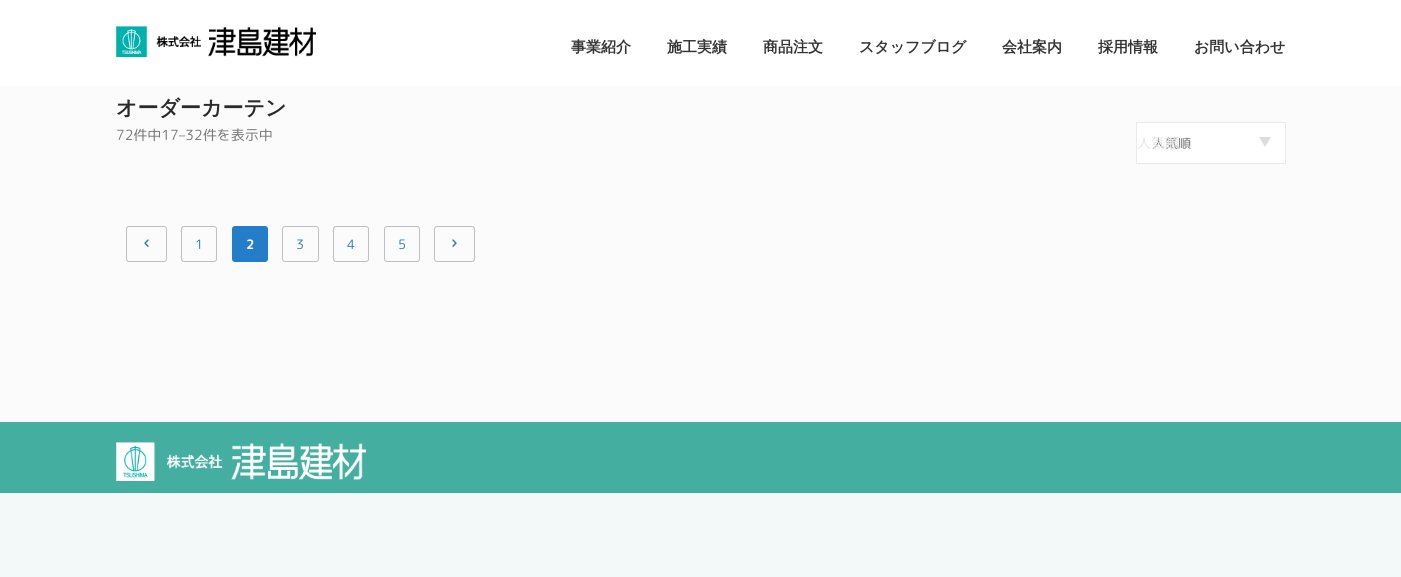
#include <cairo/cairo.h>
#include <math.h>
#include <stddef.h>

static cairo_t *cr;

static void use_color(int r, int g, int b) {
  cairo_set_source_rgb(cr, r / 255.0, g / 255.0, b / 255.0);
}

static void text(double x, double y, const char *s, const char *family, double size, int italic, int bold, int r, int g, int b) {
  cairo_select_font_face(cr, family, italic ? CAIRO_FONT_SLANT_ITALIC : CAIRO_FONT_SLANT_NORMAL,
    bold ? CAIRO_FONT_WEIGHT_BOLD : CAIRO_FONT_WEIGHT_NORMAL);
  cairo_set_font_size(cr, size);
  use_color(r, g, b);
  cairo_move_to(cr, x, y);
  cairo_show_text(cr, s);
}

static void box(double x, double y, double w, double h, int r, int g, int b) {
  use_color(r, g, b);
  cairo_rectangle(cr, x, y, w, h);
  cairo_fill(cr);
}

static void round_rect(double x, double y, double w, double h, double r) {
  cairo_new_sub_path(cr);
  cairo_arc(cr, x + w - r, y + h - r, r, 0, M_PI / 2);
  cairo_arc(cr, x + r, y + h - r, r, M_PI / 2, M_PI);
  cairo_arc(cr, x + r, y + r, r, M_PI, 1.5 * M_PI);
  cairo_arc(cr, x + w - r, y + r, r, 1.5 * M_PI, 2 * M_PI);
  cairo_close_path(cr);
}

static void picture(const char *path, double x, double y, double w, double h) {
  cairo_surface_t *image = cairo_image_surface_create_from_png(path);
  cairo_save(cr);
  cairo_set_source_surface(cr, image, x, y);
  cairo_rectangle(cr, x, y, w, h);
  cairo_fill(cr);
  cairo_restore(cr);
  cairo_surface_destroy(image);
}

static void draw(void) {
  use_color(251, 251, 251);
  cairo_paint(cr);
  box(0, 0, 1401, 86, 255, 255, 255);
  picture("img_01.png", 116, 26, 200, 31);
  cairo_rectangle(cr, 1136.5, 122.5, 149, 41);
  cairo_fill_preserve(cr);
  use_color(234, 234, 234);
  cairo_set_line_width(cr, 1);
  cairo_stroke(cr);
  use_color(221, 221, 221);
  cairo_new_path(cr);
  cairo_move_to(cr, 1259, 137);
  cairo_line_to(cr, 1271, 137);
  cairo_line_to(cr, 1265, 147);
  cairo_close_path(cr);
  cairo_fill(cr);
  round_rect(126.5, 226.5, 40, 35, 2.5);
  use_color(191, 191, 191);
  cairo_stroke(cr);
  picture("img_02.png", 144, 239, 5, 8);
  round_rect(181.5, 226.5, 35, 35, 2.5);
  cairo_stroke(cr);
  use_color(35, 125, 200);
  round_rect(232.5, 226.5, 35, 35, 2.5);
  cairo_fill_preserve(cr);
  cairo_stroke(cr);
  round_rect(282.5, 226.5, 36, 35, 2.5);
  use_color(191, 191, 191);
  cairo_stroke(cr);
  round_rect(333.5, 226.5, 35, 35, 2.5);
  cairo_stroke(cr);
  round_rect(384.5, 226.5, 35, 35, 2.5);
  cairo_stroke(cr);
  round_rect(434.5, 226.5, 40, 35, 2.5);
  cairo_stroke(cr);
  picture("img_03.png", 452, 239, 5, 8);
  box(0, 422, 1401, 71, 68, 174, 161);
  picture("img_04.png", 116, 442, 250, 39);
  box(0, 493, 1401, 84, 242, 249, 248);
  text(571, 52, "事業紹介", "WenQuanYi Zen Hei", 15, 0, 1, 51, 51, 51);
  text(667, 52, "施工実績", "WenQuanYi Zen Hei", 15, 0, 1, 51, 51, 51);
  text(763, 52, "商品注文", "WenQuanYi Zen Hei", 15, 0, 1, 51, 51, 51);
  text(859, 52, "スタッフブログ", "WenQuanYi Zen Hei", 15, 0, 1, 51, 51, 51);
  text(1002, 52, "会社案内", "WenQuanYi Zen Hei", 15, 0, 1, 51, 51, 51);
  text(1098, 52, "採用情報", "WenQuanYi Zen Hei", 15, 0, 1, 51, 51, 51);
  text(1194, 52, "お問い合わせ", "WenQuanYi Zen Hei", 15, 0, 1, 51, 51, 51);
  text(116, 115, "オーダーカーテン", "WenQuanYi Zen Hei", 21, 0, 1, 42, 42, 42);
  text(116, 140, "72件中17–32件を表示中", "Rounded Mplus 1c", 14, 0, 0, 119, 119, 119);
  text(1152, 148, "人気順", "Rounded Mplus 1c", 13, 0, 0, 119, 119, 119);
  text(1137, 148, "人気順", "Rounded Mplus 1c", 14, 0, 0, 228, 228, 228);
  text(195, 249, "1", "Rounded Mplus 1c", 13, 0, 0, 51, 122, 183);
  text(246, 249, "2", "Rounded Mplus 1c", 13, 0, 1, 255, 255, 255);
  text(296, 249, "3", "Rounded Mplus 1c", 13, 0, 0, 51, 122, 183);
  text(347, 249, "4", "Rounded Mplus 1c", 13, 0, 0, 51, 122, 183);
  text(398, 249, "5", "Rounded Mplus 1c", 13, 0, 0, 51, 122, 183);
}

int main(void) {
  cairo_surface_t *surface = cairo_image_surface_create(CAIRO_FORMAT_RGB24, 1401, 577);
  cr = cairo_create(surface);
  cairo_font_options_t *options = cairo_font_options_create();
  cairo_font_options_set_hint_metrics(options, CAIRO_HINT_METRICS_OFF);
  cairo_font_options_set_hint_style(options, CAIRO_HINT_STYLE_NONE);
  cairo_set_font_options(cr, options);
  cairo_set_miter_limit(cr, 4);
  draw();
  cairo_surface_write_to_png(surface, "out.png");
  cairo_font_options_destroy(options);
  cairo_destroy(cr);
  cairo_surface_destroy(surface);
  return 0;
}
